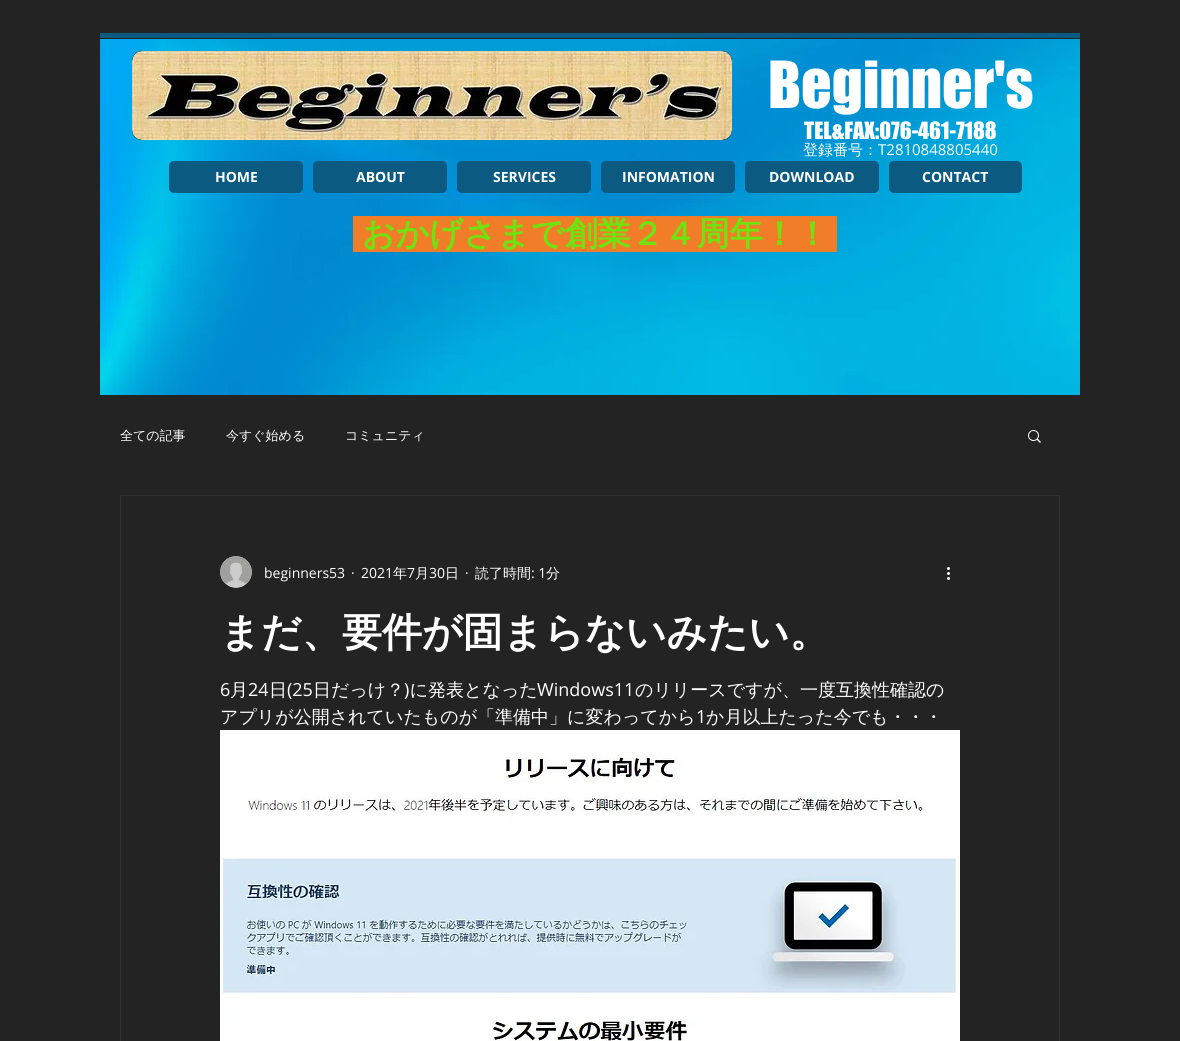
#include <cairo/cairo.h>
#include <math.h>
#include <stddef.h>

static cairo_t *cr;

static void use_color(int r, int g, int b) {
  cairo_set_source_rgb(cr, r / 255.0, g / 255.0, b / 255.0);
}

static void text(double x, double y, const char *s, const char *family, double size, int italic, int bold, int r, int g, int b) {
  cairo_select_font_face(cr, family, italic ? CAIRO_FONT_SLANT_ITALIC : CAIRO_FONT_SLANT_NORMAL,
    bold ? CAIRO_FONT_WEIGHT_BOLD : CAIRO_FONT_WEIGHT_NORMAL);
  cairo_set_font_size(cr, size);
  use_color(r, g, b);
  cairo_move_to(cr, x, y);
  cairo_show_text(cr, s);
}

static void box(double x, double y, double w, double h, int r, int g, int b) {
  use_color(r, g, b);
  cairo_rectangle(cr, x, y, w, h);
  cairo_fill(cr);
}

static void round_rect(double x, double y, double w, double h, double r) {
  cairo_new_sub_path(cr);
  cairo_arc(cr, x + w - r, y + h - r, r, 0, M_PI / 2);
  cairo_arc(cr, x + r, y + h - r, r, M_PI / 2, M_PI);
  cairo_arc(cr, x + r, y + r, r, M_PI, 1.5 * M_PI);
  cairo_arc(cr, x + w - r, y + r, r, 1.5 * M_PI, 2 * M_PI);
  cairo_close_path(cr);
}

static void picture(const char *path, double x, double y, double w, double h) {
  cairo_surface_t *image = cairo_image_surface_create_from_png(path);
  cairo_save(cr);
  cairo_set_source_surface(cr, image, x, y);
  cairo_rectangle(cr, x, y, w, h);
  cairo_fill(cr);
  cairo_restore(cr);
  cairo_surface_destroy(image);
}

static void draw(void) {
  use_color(35, 35, 35);
  cairo_paint(cr);
  box(100, 33, 980, 5, 10, 90, 130);
  picture("img_01.png", 100, 39, 980, 356);
  use_color(35, 35, 35);
  round_rect(132, 51, 600, 89, 10);
  cairo_fill(cr);
  picture("img_02.png", 132, 51, 600, 89);
  use_color(10, 90, 130);
  round_rect(169, 161, 134, 32, 5);
  cairo_fill(cr);
  round_rect(313, 161, 134, 32, 5);
  cairo_fill(cr);
  round_rect(457, 161, 134, 32, 5);
  cairo_fill(cr);
  round_rect(601, 161, 134, 32, 5);
  cairo_fill(cr);
  round_rect(745, 161, 134, 32, 5);
  cairo_fill(cr);
  round_rect(889, 161, 133, 32, 5);
  cairo_fill(cr);
  box(353, 216, 484, 36, 242, 125, 41);
  picture("img_03.png", 1028, 430, 13, 13);
  cairo_rectangle(cr, 120.5, 495.5, 939, 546);
  use_color(48, 48, 48);
  cairo_set_line_width(cr, 1);
  cairo_stroke(cr);
  picture("img_04.png", 220, 556, 32, 32);
  picture("img_05.png", 947, 567, 3, 13);
  picture("img_06.png", 220, 730, 740, 311);
  text(768, 108, "Beginner's", "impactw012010", 60, 0, 0, 255, 255, 255);
  text(804, 139, "TEL&FAX:076-461-7188", "impactw012010", 22, 0, 0, 255, 255, 255);
  text(803, 155, "登録番号：", "WenQuanYi Zen Hei Medium", 15, 0, 0, 255, 255, 255);
  text(878, 155, "T2810848805440", "Open Sans", 15, 0, 0, 255, 255, 255);
  text(215, 182, "HOME", "Open Sans", 14, 0, 1, 255, 255, 255);
  text(356, 182, "ABOUT", "Open Sans", 14, 0, 1, 255, 255, 255);
  text(493, 182, "SERVICES", "Open Sans", 14, 0, 1, 255, 255, 255);
  text(622, 182, "INFOMATION", "Open Sans", 14, 0, 1, 255, 255, 255);
  text(769, 182, "DOWNLOAD", "Open Sans", 14, 0, 1, 255, 255, 255);
  text(922, 182, "CONTACT", "Open Sans", 14, 0, 1, 255, 255, 255);
  text(362, 245, "おかげさまで創業２４周年！！", "WenQuanYi Zen Hei", 33, 0, 1, 111, 227, 16);
  text(120, 440, "全ての記事", "WenQuanYi Zen Hei Medium", 13, 0, 0, 255, 255, 255);
  text(226, 440, "今すぐ始める", "WenQuanYi Zen Hei Medium", 13, 0, 0, 255, 255, 255);
  text(345, 440, "コミュニティ", "WenQuanYi Zen Hei Medium", 13, 0, 0, 255, 255, 255);
  text(264, 578, "beginners53", "Open Sans", 14, 0, 0, 255, 255, 255);
  text(351, 578, "·", "Open Sans", 14, 0, 0, 255, 255, 255);
  text(361, 578, "2021", "Open Sans", 14, 0, 0, 255, 255, 255);
  text(393, 578, "年", "WenQuanYi Zen Hei Medium", 14, 0, 0, 255, 255, 255);
  text(407, 578, "7", "Open Sans", 14, 0, 0, 255, 255, 255);
  text(415, 578, "月", "WenQuanYi Zen Hei Medium", 14, 0, 0, 255, 255, 255);
  text(429, 578, "30", "Open Sans", 14, 0, 0, 255, 255, 255);
  text(445, 578, "日", "WenQuanYi Zen Hei Medium", 14, 0, 0, 255, 255, 255);
  text(465, 578, "·", "Open Sans", 14, 0, 0, 255, 255, 255);
  text(475, 578, "読了時間", "WenQuanYi Zen Hei Medium", 14, 0, 0, 255, 255, 255);
  text(531, 578, ": 1", "Open Sans", 14, 0, 0, 255, 255, 255);
  text(546, 578, "分", "WenQuanYi Zen Hei Medium", 14, 0, 0, 255, 255, 255);
  text(220, 646, "まだ、要件が固まらないみたい。", "WenQuanYi Zen Hei", 40, 0, 1, 255, 255, 255);
  text(220, 696, "6", "Open Sans", 18, 0, 0, 255, 255, 255);
  text(230, 696, "月", "WenQuanYi Zen Hei Medium", 18, 0, 0, 255, 255, 255);
  text(248, 696, "24", "Open Sans", 18, 0, 0, 255, 255, 255);
  text(269, 696, "日", "WenQuanYi Zen Hei Medium", 18, 0, 0, 255, 255, 255);
  text(287, 696, "(25", "Open Sans", 18, 0, 0, 255, 255, 255);
  text(313, 696, "日だっけ？ に発表となった", "WenQuanYi Zen Hei Medium", 18, 0, 0, 255, 255, 255);
  text(537, 696, "Windows11", "Open Sans", 18, 0, 0, 255, 255, 255);
  text(635, 696, "のリリースですが、一度互換性確認の", "WenQuanYi Zen Hei Medium", 18, 0, 0, 255, 255, 255);
  text(404, 696, ")", "Open Sans", 18, 0, 0, 255, 255, 255);
  text(220, 723, "アプリが公開されていたものが「準備中」に変わってから", "WenQuanYi Zen Hei Medium", 18, 0, 0, 255, 255, 255);
  text(696, 723, "1", "Open Sans", 18, 0, 0, 255, 255, 255);
  text(706, 723, "か月以上たった今でも・・・", "WenQuanYi Zen Hei Medium", 18, 0, 0, 255, 255, 255);
}

int main(void) {
  cairo_surface_t *surface = cairo_image_surface_create(CAIRO_FORMAT_RGB24, 1180, 1041);
  cr = cairo_create(surface);
  cairo_font_options_t *options = cairo_font_options_create();
  cairo_font_options_set_hint_metrics(options, CAIRO_HINT_METRICS_OFF);
  cairo_font_options_set_hint_style(options, CAIRO_HINT_STYLE_NONE);
  cairo_set_font_options(cr, options);
  cairo_set_miter_limit(cr, 4);
  draw();
  cairo_surface_write_to_png(surface, "out.png");
  cairo_font_options_destroy(options);
  cairo_destroy(cr);
  cairo_surface_destroy(surface);
  return 0;
}
